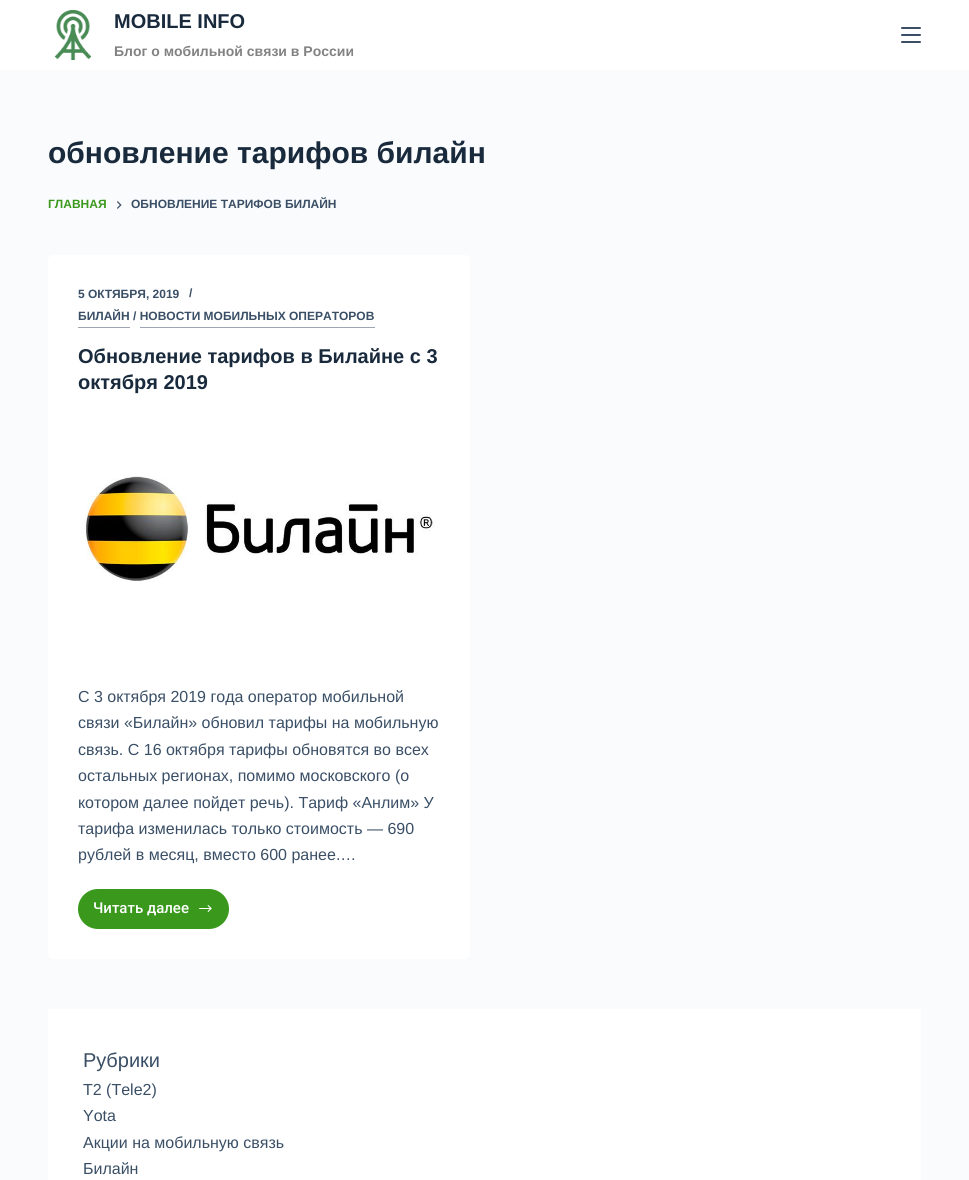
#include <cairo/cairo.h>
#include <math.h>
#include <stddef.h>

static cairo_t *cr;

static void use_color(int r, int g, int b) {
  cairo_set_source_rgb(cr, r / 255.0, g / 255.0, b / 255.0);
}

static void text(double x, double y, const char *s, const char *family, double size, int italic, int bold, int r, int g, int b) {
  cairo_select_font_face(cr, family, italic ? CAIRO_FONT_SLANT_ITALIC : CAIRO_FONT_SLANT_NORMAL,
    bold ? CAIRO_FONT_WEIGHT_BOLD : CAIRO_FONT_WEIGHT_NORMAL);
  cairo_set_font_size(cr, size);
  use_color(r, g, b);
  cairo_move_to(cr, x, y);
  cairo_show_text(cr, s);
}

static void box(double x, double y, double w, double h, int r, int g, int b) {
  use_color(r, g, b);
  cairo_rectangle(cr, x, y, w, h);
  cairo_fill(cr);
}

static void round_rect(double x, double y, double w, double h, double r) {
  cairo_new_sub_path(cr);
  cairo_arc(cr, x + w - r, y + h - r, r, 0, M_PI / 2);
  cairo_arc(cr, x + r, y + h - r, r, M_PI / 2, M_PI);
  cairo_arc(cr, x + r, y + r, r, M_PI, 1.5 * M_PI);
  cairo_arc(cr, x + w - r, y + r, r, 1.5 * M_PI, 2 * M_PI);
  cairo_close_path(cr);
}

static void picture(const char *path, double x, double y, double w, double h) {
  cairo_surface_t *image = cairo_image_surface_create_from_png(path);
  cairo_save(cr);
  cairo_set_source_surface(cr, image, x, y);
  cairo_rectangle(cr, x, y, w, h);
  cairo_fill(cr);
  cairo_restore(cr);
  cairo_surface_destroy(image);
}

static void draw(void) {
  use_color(250, 251, 252);
  cairo_paint(cr);
  box(0, 0, 969, 70, 255, 255, 255);
  picture("img_01.png", 54, 10, 38, 50);
  use_color(58, 79, 102);
  round_rect(901, 27, 20, 2, 1);
  cairo_fill(cr);
  round_rect(901, 34, 20, 2, 1);
  cairo_fill(cr);
  round_rect(901, 41, 20, 2, 1);
  cairo_fill(cr);
  picture("img_02.png", 117, 201, 5, 8);
  use_color(255, 255, 255);
  round_rect(48, 255, 422, 704, 5);
  cairo_fill(cr);
  box(78, 327, 52, 1, 157, 167, 179);
  box(140, 327, 235, 1, 157, 167, 179);
  picture("img_03.png", 84, 476, 351, 106);
  use_color(58, 153, 29);
  round_rect(78, 889, 151, 40, 20);
  cairo_fill(cr);
  picture("img_04.png", 199, 905, 13, 7);
  box(48, 1009, 873, 171, 255, 255, 255);
  text(114, 28, "MOBILE INFO", "Liberation Sans", 20, 0, 1, 25, 42, 61);
  text(114, 56, "Блог о мобильной связи в России", "Liberation Sans", 14, 0, 1, 130, 130, 130);
  text(48, 163, "обновление тарифов билайн", "Liberation Sans", 30, 0, 1, 25, 42, 61);
  text(48, 208, "ГЛАВНАЯ", "Liberation Sans", 12, 0, 1, 58, 153, 29);
  text(131, 208, "ОБНОВЛЕНИЕ ТАРИФОВ БИЛАЙН", "Liberation Sans", 12, 0, 1, 58, 79, 102);
  text(78, 298, "5 ОКТЯБРЯ, 2019", "Liberation Sans", 12, 0, 1, 58, 79, 102);
  text(189, 297, "/", "Liberation Sans", 12, 0, 1, 58, 79, 102);
  text(78, 320, "БИЛАЙН", "Liberation Sans", 12, 0, 1, 58, 79, 102);
  text(133, 320, "/ НОВОСТИ МОБИЛЬНЫХ ОПЕРАТОРОВ", "Liberation Sans", 12, 0, 1, 58, 79, 102);
  text(78, 363, "Обновление тарифов в Билайне с 3", "Liberation Sans", 20, 0, 1, 25, 42, 61);
  text(78, 389, "октября 2019", "Liberation Sans", 20, 0, 1, 25, 42, 61);
  text(78, 702, "С 3 октября 2019 года оператор мобильной", "Liberation Sans", 16, 0, 0, 58, 79, 102);
  text(78, 728, "связи «Билайн» обновил тарифы на мобильную", "Liberation Sans", 16, 0, 0, 58, 79, 102);
  text(78, 755, "связь. С 16 октября тарифы обновятся во всех", "Liberation Sans", 16, 0, 0, 58, 79, 102);
  text(78, 781, "остальных регионах, помимо московского (о", "Liberation Sans", 16, 0, 0, 58, 79, 102);
  text(78, 808, "котором далее пойдет речь). Тариф «Анлим» У", "Liberation Sans", 16, 0, 0, 58, 79, 102);
  text(78, 834, "тарифа изменилась только стоимость — 690", "Liberation Sans", 16, 0, 0, 58, 79, 102);
  text(78, 860, "рублей в месяц, вместо 600 ранее.…", "Liberation Sans", 16, 0, 0, 58, 79, 102);
  text(93, 913, "Читать далее", "Roboto Medium", 15, 0, 0, 255, 255, 255);
  text(83, 1067, "Рубрики", "Liberation Sans", 20, 0, 0, 58, 79, 102);
  text(83, 1095, "T2 (Tele2)", "Liberation Sans", 16, 0, 0, 58, 79, 102);
  text(83, 1121, "Yota", "Liberation Sans", 16, 0, 0, 58, 79, 102);
  text(83, 1148, "Акции на мобильную связь", "Liberation Sans", 16, 0, 0, 58, 79, 102);
  text(83, 1174, "Билайн", "Liberation Sans", 16, 0, 0, 58, 79, 102);
}

int main(void) {
  cairo_surface_t *surface = cairo_image_surface_create(CAIRO_FORMAT_RGB24, 969, 1180);
  cr = cairo_create(surface);
  cairo_font_options_t *options = cairo_font_options_create();
  cairo_font_options_set_hint_metrics(options, CAIRO_HINT_METRICS_OFF);
  cairo_font_options_set_hint_style(options, CAIRO_HINT_STYLE_NONE);
  cairo_set_font_options(cr, options);
  cairo_set_miter_limit(cr, 4);
  draw();
  cairo_surface_write_to_png(surface, "out.png");
  cairo_font_options_destroy(options);
  cairo_destroy(cr);
  cairo_surface_destroy(surface);
  return 0;
}
